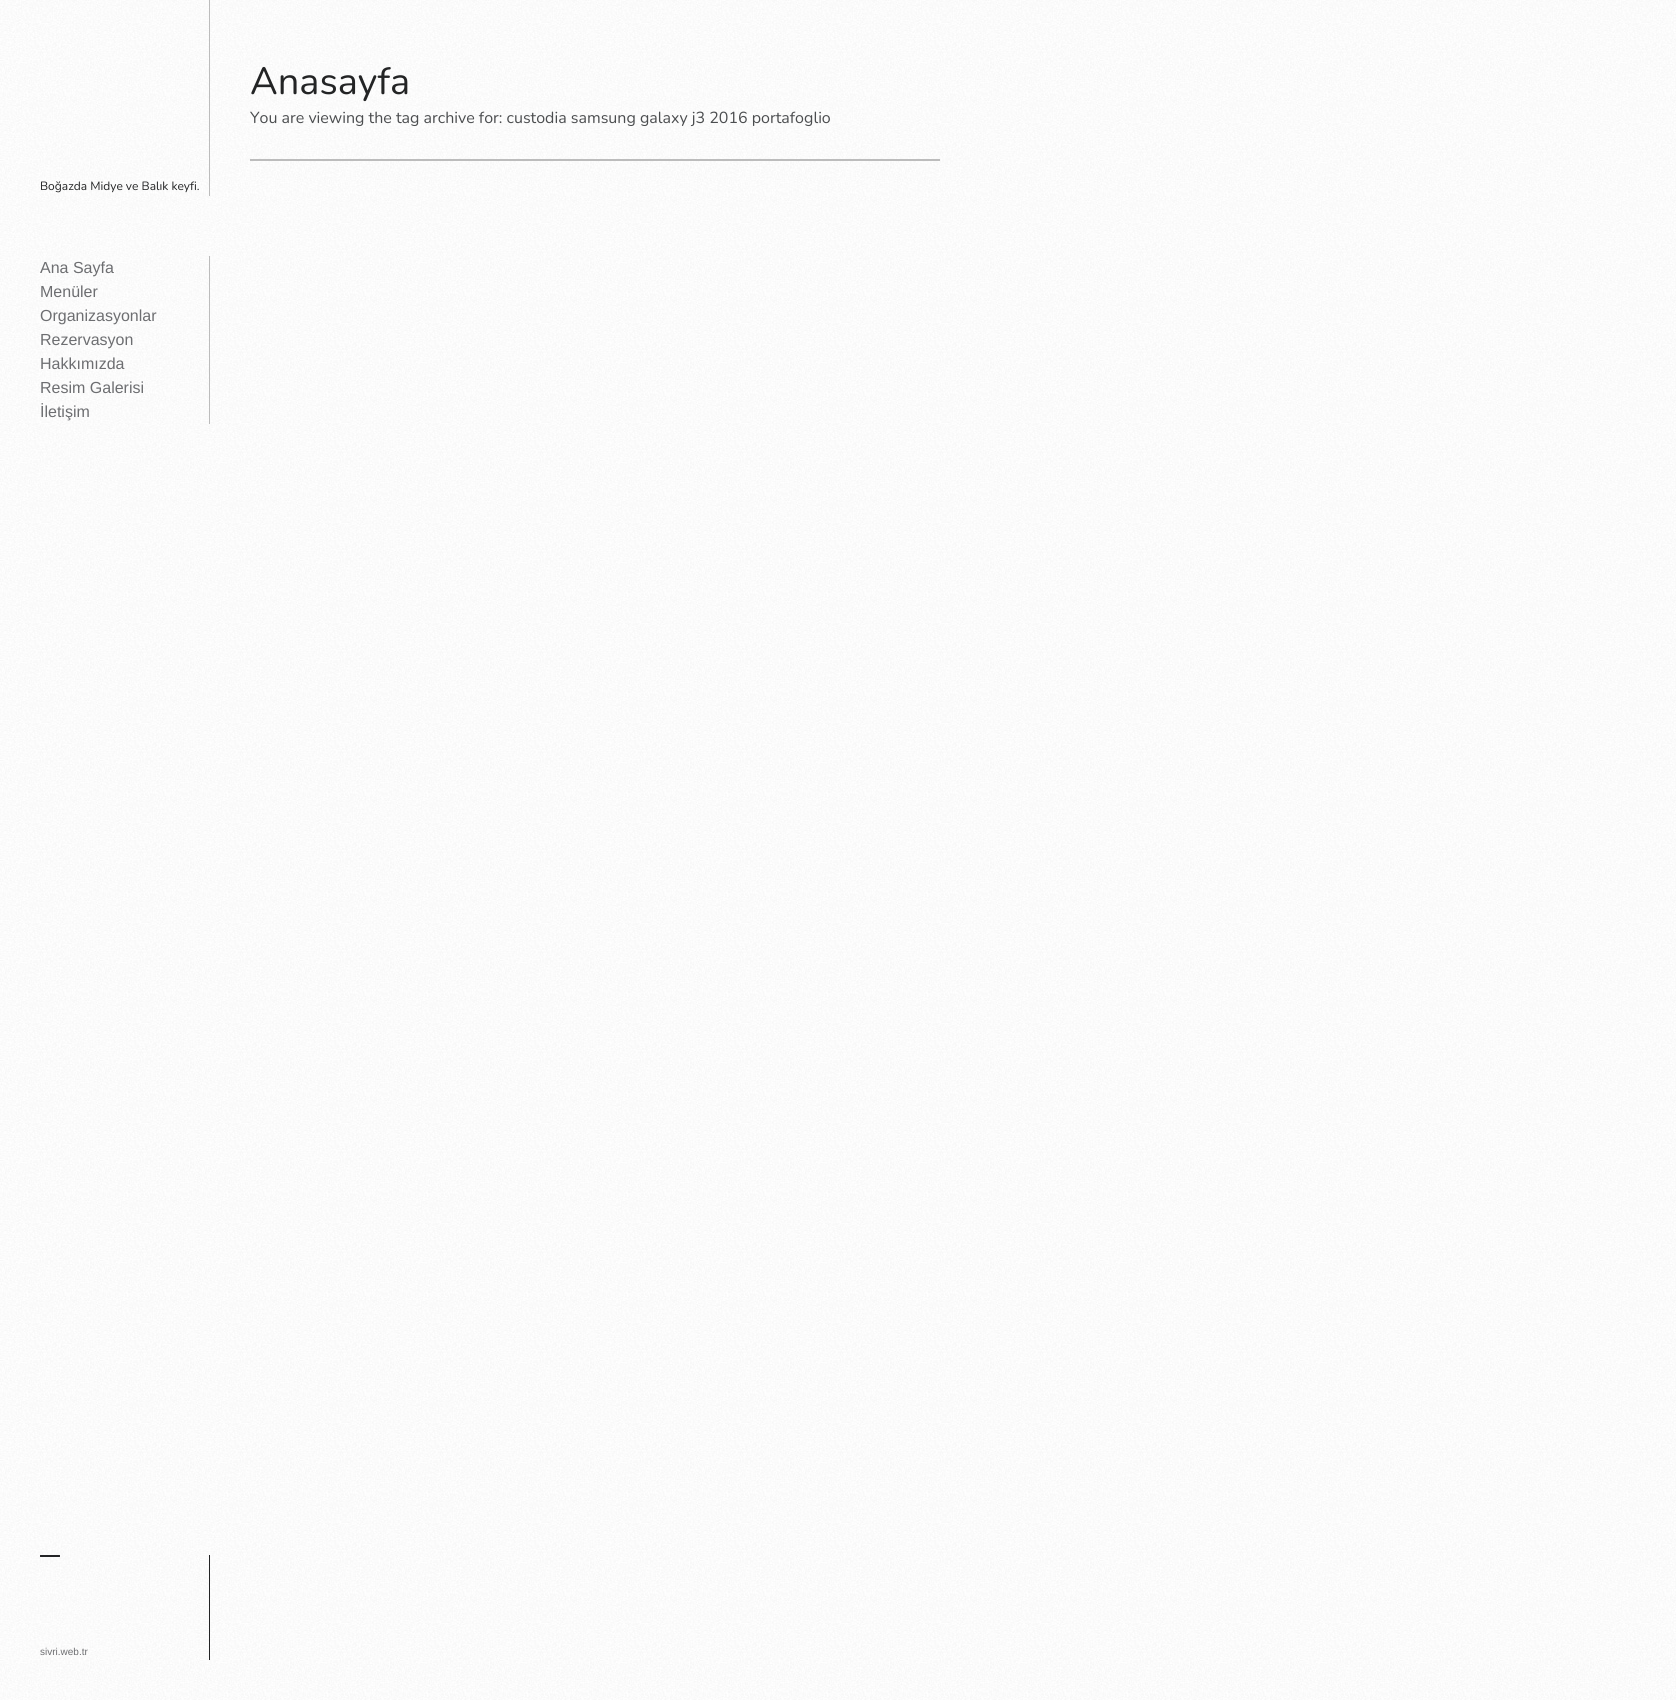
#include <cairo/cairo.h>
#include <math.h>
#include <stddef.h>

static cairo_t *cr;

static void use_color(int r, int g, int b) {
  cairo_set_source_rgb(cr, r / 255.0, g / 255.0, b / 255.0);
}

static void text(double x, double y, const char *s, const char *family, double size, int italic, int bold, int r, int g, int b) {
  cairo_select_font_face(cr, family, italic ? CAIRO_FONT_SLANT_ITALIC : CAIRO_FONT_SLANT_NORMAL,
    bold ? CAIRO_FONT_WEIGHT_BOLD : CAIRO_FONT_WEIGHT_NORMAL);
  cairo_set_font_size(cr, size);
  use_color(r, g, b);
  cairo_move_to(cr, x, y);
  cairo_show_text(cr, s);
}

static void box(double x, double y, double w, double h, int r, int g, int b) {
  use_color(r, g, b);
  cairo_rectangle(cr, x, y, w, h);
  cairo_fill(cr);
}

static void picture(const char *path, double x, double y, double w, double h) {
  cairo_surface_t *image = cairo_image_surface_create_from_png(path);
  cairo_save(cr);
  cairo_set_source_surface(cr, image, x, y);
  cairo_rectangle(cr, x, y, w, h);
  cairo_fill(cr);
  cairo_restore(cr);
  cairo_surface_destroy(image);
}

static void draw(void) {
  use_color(255, 255, 255);
  cairo_paint(cr);
  picture("img_01.png", 0, 231, 1676, 1469);
  picture("img_02.png", 0, 0, 1676, 231);
  box(250, 159, 690, 2, 188, 188, 188);
  box(209, 0, 1, 196, 188, 188, 188);
  box(209, 256, 1, 168, 188, 188, 188);
  box(209, 1555, 1, 105, 35, 36, 37);
  picture("img_03.png", 40, 1555, 20, 2);
  text(250, 94, "Anasayfa", "Nunito", 38, 0, 0, 35, 36, 37);
  text(250, 123, "You are viewing the tag archive for: custodia samsung galaxy j3 2016 portafoglio", "Nunito", 16, 0, 0, 75, 77, 79);
  text(40, 190, "Boğazda Midye ve Balık keyfi.", "Nunito", 12, 0, 0, 35, 36, 37);
  text(40, 273, "Ana Sayfa", "Liberation Sans", 16, 0, 0, 109, 110, 113);
  text(40, 297, "Menüler", "Liberation Sans", 16, 0, 0, 109, 110, 113);
  text(40, 321, "Organizasyonlar", "Liberation Sans", 16, 0, 0, 109, 110, 113);
  text(40, 345, "Rezervasyon", "Liberation Sans", 16, 0, 0, 109, 110, 113);
  text(40, 369, "Hakkımızda", "Liberation Sans", 16, 0, 0, 109, 110, 113);
  text(40, 393, "Resim Galerisi", "Liberation Sans", 16, 0, 0, 109, 110, 113);
  text(40, 417, "İletişim", "Liberation Sans", 16, 0, 0, 109, 110, 113);
  text(40, 1655, "sivri.web.tr", "Liberation Sans", 10, 0, 0, 109, 110, 113);
}

int main(void) {
  cairo_surface_t *surface = cairo_image_surface_create(CAIRO_FORMAT_RGB24, 1676, 1700);
  cr = cairo_create(surface);
  cairo_font_options_t *options = cairo_font_options_create();
  cairo_font_options_set_hint_metrics(options, CAIRO_HINT_METRICS_OFF);
  cairo_font_options_set_hint_style(options, CAIRO_HINT_STYLE_NONE);
  cairo_set_font_options(cr, options);
  cairo_set_miter_limit(cr, 4);
  draw();
  cairo_surface_write_to_png(surface, "out.png");
  cairo_font_options_destroy(options);
  cairo_destroy(cr);
  cairo_surface_destroy(surface);
  return 0;
}
